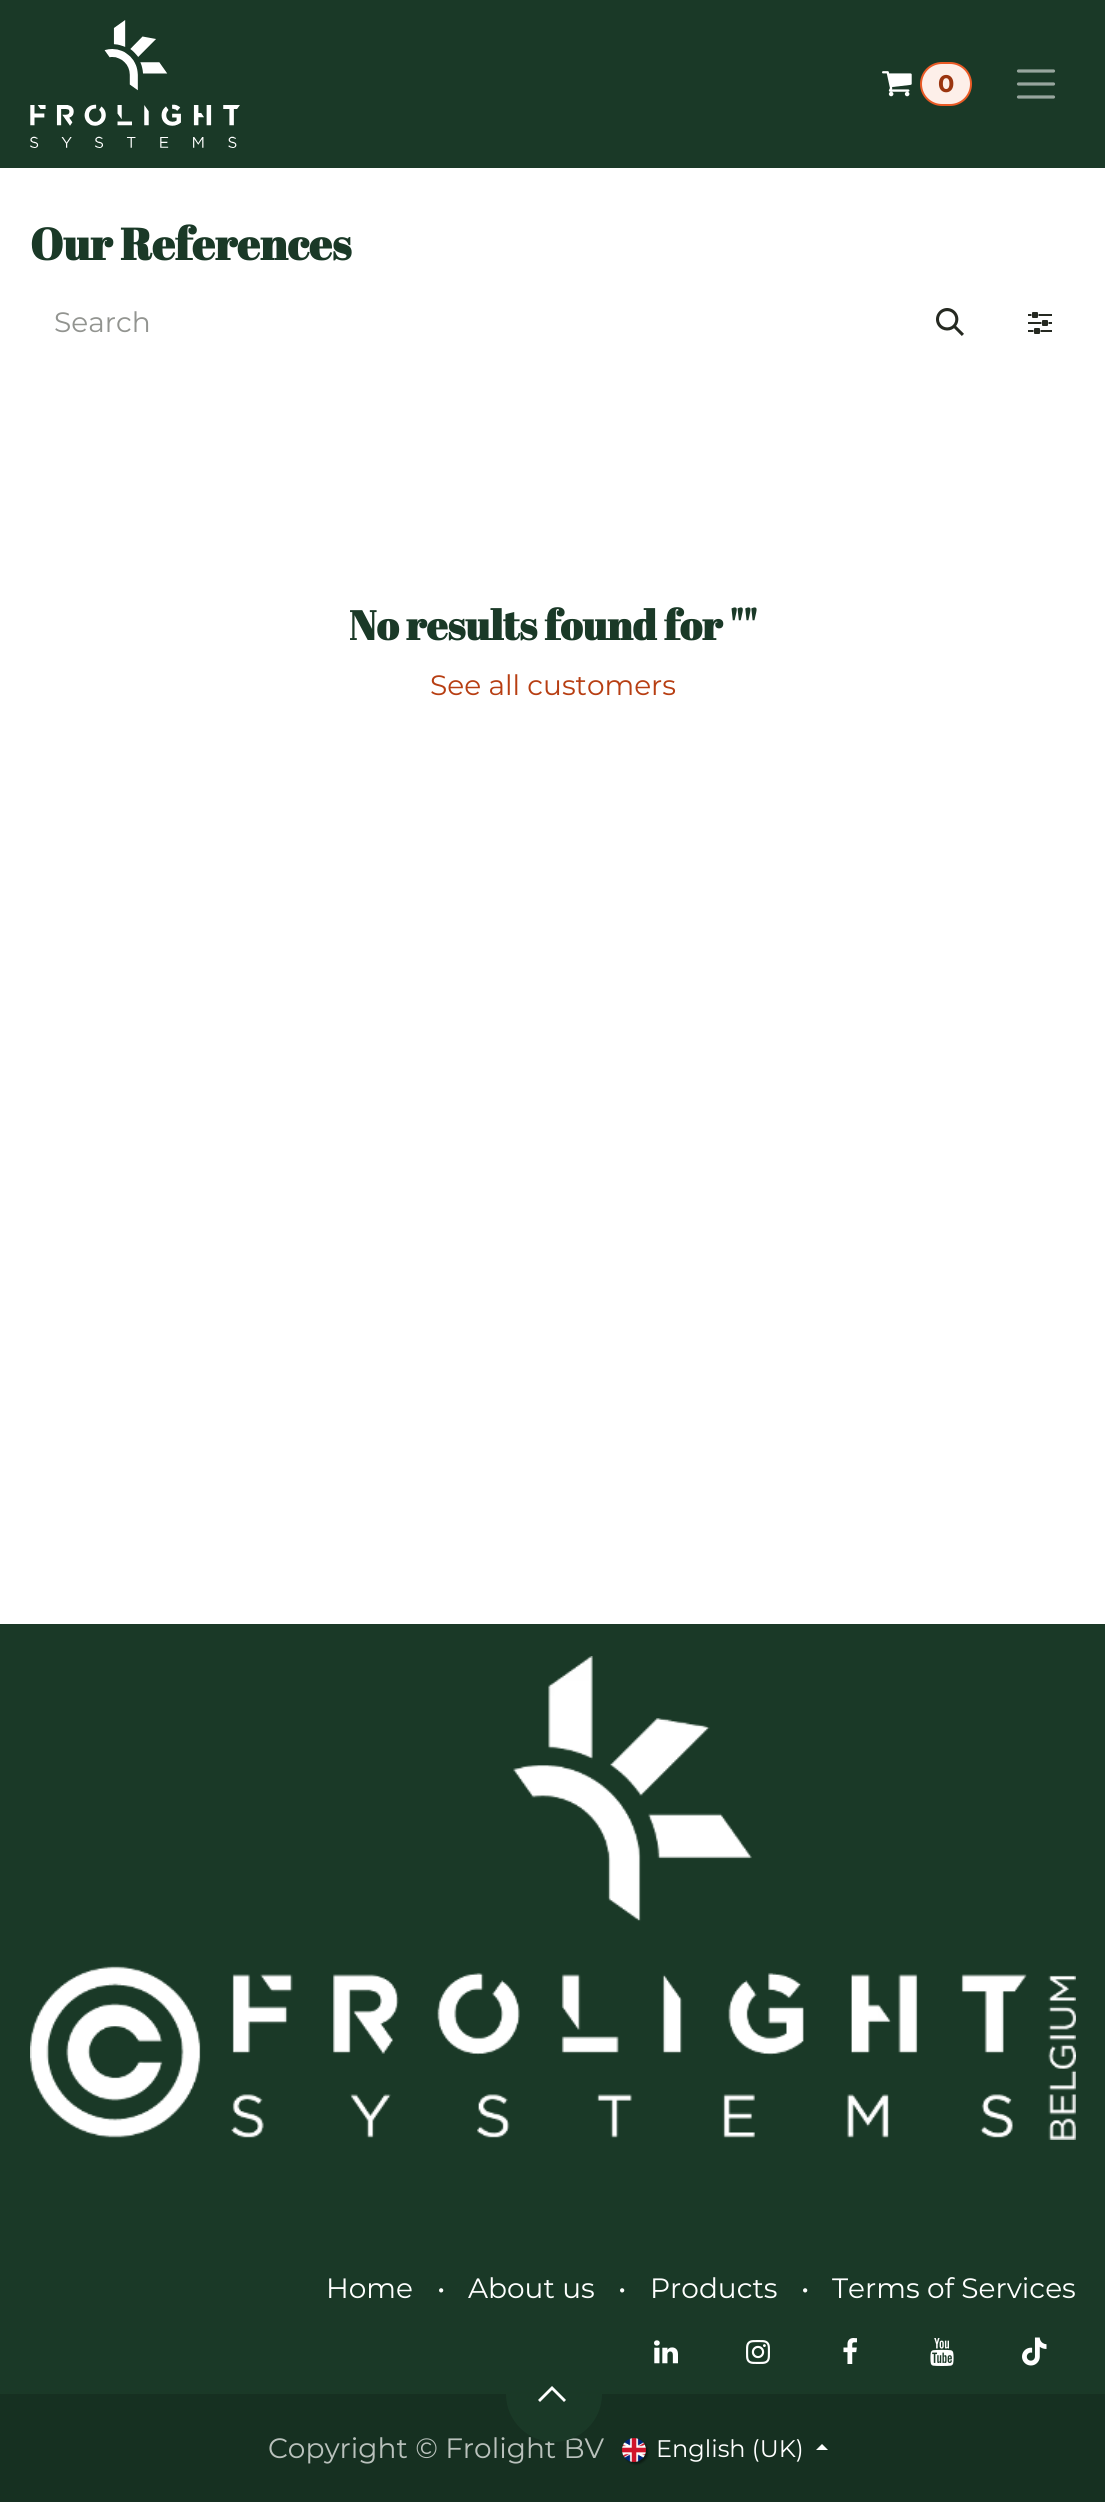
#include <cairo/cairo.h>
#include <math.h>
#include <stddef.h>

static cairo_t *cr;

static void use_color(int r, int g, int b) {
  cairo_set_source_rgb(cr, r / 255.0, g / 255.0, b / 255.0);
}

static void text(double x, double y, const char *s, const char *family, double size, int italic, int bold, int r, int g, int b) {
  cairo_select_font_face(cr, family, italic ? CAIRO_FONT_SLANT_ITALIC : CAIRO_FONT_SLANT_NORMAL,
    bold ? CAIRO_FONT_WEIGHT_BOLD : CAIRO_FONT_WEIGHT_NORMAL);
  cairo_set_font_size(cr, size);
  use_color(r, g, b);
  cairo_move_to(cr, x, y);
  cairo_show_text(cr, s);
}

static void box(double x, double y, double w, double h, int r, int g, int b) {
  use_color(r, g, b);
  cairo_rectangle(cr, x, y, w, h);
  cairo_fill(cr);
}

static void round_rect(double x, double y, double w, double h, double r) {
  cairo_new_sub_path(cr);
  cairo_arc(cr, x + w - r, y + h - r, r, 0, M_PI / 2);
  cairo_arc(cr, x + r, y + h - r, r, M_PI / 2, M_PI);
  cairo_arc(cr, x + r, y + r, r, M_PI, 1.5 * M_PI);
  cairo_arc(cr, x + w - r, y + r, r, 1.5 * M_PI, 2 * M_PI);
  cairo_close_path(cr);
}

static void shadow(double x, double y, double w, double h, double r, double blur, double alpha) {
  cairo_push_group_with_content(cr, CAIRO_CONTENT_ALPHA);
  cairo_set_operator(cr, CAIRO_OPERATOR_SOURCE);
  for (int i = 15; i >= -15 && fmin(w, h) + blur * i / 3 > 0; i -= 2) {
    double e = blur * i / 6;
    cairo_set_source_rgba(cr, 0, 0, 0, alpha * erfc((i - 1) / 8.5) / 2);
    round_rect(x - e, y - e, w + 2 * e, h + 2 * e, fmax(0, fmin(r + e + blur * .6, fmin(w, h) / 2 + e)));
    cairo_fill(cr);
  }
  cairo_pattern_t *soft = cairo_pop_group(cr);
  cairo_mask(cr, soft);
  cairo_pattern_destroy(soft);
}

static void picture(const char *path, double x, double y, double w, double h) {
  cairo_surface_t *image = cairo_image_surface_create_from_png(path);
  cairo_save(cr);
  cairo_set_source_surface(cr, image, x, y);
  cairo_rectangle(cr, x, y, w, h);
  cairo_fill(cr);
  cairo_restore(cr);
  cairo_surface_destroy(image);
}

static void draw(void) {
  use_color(255, 255, 255);
  cairo_paint(cr);
  box(0, 0, 1105, 168, 26, 57, 39);
  picture("img_01.png", 30, 20, 210, 128);
  picture("img_02.png", 882, 71, 30, 26);
  use_color(253, 239, 233);
  round_rect(921, 63, 50, 42, 21);
  cairo_fill_preserve(cr);
  use_color(234, 91, 38);
  cairo_stroke(cr);
  cairo_new_path(cr);
  cairo_move_to(cr, 1018.5, 71);
  cairo_line_to(cr, 1053.5, 71);
  cairo_move_to(cr, 1018.5, 84);
  cairo_line_to(cr, 1053.5, 84);
  cairo_move_to(cr, 1018.5, 97);
  cairo_line_to(cr, 1053.5, 97);
  use_color(152, 166, 158);
  cairo_set_line_width(cr, 3.2);
  cairo_set_line_cap(cr, CAIRO_LINE_CAP_ROUND);
  cairo_stroke(cr);
  picture("img_03.png", 936, 308, 28, 28);
  picture("img_04.png", 1028, 312, 24, 22);
  box(0, 1624, 1105, 770, 26, 57, 39);
  picture("img_05.png", 30, 1656, 1046, 484);
  picture("img_06.png", 654, 2340, 24, 24);
  picture("img_07.png", 746, 2340, 24, 24);
  picture("img_08.png", 843, 2338, 14, 26);
  picture("img_09.png", 930, 2338, 24, 28);
  picture("img_10.png", 1022, 2337, 25, 29);
  box(0, 2394, 1105, 108, 22, 48, 33);
  use_color(0, 0, 0);
  shadow(624, 2440, 24, 24, 12, 1, 0.43);
  picture("img_11.png", 622, 2438, 24, 24);
  use_color(255, 255, 255);
  cairo_new_path(cr);
  cairo_move_to(cr, 828, 2450);
  cairo_line_to(cr, 816, 2450);
  cairo_line_to(cr, 822, 2444);
  cairo_close_path(cr);
  cairo_fill(cr);
  text(938, 92, "0", "Montserrat", 24, 0, 1, 155, 53, 15);
  text(30, 260, "Our References", "Abril Fatface", 44.5, 0, 1, 26, 57, 39);
  text(54, 332, "Search", "Montserrat", 28, 0, 0, 146, 148, 144);
  text(349, 640, "No results found for \"\"", "Abril Fatface", 41, 0, 1, 26, 57, 39);
  text(430, 695, "See all customers", "Montserrat", 28, 0, 0, 183, 62, 18);
  text(326, 2298, "Home", "Montserrat", 28, 0, 0, 255, 255, 255);
  text(437, 2298, "•", "Montserrat", 28, 0, 0, 255, 255, 255);
  text(468, 2298, "About us", "Montserrat", 28, 0, 0, 255, 255, 255);
  text(618, 2298, "•", "Montserrat", 28, 0, 0, 255, 255, 255);
  text(650, 2298, "Products", "Montserrat", 28, 0, 0, 255, 255, 255);
  text(801, 2298, "•", "Montserrat", 28, 0, 0, 255, 255, 255);
  text(832, 2298, "Terms of Services", "Montserrat", 28, 0, 0, 255, 255, 255);
  text(268, 2458, "Copyright © Frolight BV", "Montserrat", 28, 0, 0, 185, 193, 188);
  use_color(26, 57, 39);
  cairo_new_path(cr);
  cairo_arc(cr, 554, 2394, 48, 0, 2 * M_PI);
  cairo_fill(cr);
  use_color(255, 255, 255);
  cairo_new_path(cr);
  cairo_move_to(cr, 552, 2386);
  cairo_line_to(cr, 566, 2400);
  cairo_line_to(cr, 564, 2402);
  cairo_line_to(cr, 552, 2390);
  cairo_line_to(cr, 540, 2402);
  cairo_line_to(cr, 538, 2400);
  cairo_close_path(cr);
  cairo_fill(cr);
  text(656, 2457, "English (UK)", "Montserrat", 24, 0, 0, 255, 255, 255);
}

int main(void) {
  cairo_surface_t *surface = cairo_image_surface_create(CAIRO_FORMAT_RGB24, 1105, 2502);
  cr = cairo_create(surface);
  cairo_font_options_t *options = cairo_font_options_create();
  cairo_font_options_set_hint_metrics(options, CAIRO_HINT_METRICS_OFF);
  cairo_font_options_set_hint_style(options, CAIRO_HINT_STYLE_NONE);
  cairo_set_font_options(cr, options);
  cairo_set_miter_limit(cr, 4);
  draw();
  cairo_surface_write_to_png(surface, "out.png");
  cairo_font_options_destroy(options);
  cairo_destroy(cr);
  cairo_surface_destroy(surface);
  return 0;
}
